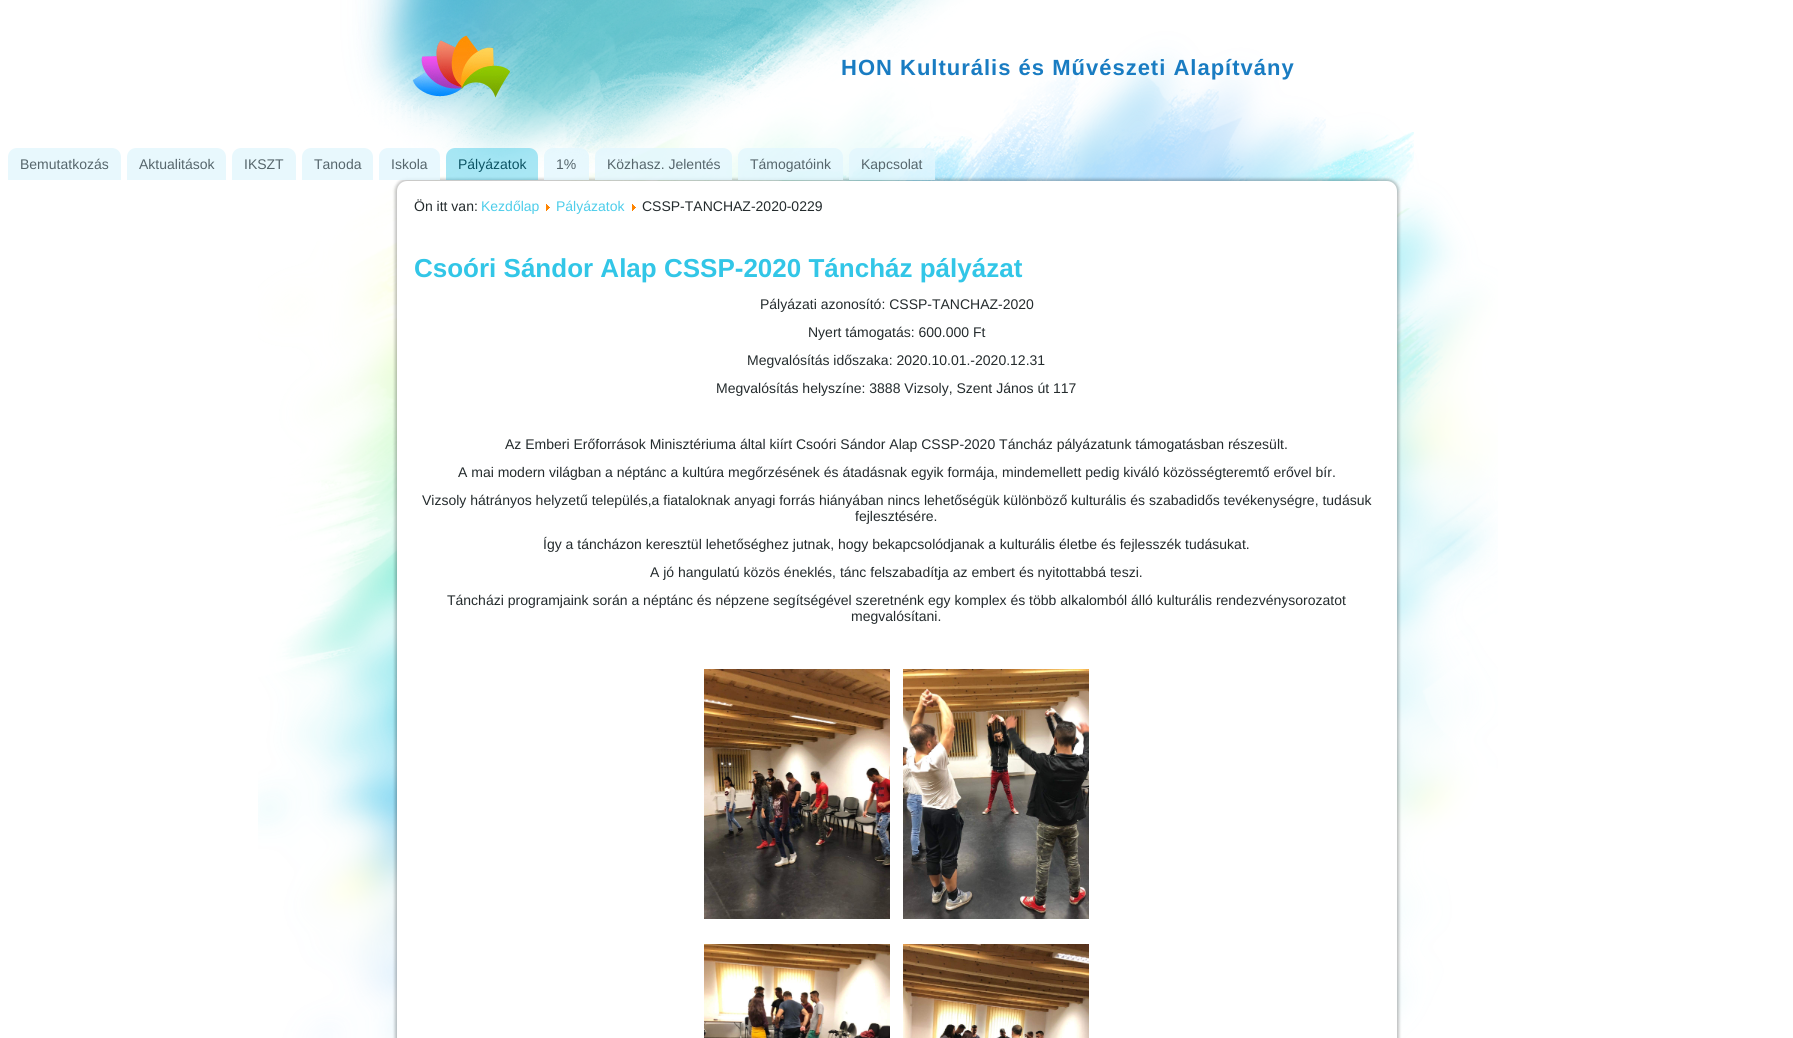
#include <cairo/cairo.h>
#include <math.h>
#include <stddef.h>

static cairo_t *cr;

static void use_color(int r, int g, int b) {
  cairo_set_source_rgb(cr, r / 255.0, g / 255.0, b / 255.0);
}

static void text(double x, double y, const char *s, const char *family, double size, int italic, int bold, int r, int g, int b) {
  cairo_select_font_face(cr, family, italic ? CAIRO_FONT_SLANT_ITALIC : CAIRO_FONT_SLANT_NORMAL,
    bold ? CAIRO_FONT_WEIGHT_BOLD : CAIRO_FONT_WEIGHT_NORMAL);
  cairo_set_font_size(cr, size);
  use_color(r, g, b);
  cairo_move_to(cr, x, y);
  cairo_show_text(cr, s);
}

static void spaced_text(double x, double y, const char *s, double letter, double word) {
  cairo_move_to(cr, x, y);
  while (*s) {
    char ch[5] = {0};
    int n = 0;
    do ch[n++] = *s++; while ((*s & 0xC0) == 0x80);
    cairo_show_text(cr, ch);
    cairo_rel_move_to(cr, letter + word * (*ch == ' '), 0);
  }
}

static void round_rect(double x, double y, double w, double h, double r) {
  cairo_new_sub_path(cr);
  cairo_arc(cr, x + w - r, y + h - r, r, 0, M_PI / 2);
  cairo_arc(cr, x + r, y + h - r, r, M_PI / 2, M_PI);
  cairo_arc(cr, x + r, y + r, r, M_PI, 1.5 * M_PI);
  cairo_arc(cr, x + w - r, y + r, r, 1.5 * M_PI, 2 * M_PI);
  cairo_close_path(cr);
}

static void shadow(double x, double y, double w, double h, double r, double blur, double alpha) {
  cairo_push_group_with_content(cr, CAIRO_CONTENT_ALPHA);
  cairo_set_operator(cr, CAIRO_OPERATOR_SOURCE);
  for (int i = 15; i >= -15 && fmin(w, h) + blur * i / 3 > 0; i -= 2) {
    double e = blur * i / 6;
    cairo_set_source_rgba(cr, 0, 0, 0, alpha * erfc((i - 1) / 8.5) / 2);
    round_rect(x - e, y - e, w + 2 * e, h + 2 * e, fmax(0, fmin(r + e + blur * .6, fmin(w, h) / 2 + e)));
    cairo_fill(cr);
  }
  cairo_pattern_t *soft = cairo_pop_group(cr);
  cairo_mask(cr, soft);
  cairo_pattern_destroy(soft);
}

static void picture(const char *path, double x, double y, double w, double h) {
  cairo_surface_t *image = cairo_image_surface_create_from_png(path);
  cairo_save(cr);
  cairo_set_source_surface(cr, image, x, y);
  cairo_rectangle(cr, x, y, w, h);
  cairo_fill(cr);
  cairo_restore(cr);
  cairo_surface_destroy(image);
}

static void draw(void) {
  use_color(255, 255, 255);
  cairo_paint(cr);
  picture("img_01.png", 258, 0, 1240, 1038);
  picture("img_02.png", 413, 35, 97, 63);
  use_color(232, 248, 253);
  cairo_new_path(cr);
  cairo_move_to(cr, 17, 148);
  cairo_line_to(cr, 112, 148);
  cairo_curve_to(cr, 117, 148, 121, 152, 121, 157);
  cairo_line_to(cr, 121, 180);
  cairo_line_to(cr, 8, 180);
  cairo_line_to(cr, 8, 157);
  cairo_curve_to(cr, 8, 152, 12, 148, 17, 148);
  cairo_close_path(cr);
  cairo_fill(cr);
  cairo_new_path(cr);
  cairo_move_to(cr, 136, 148);
  cairo_line_to(cr, 217, 148);
  cairo_curve_to(cr, 222, 148, 226, 152, 226, 157);
  cairo_line_to(cr, 226, 180);
  cairo_line_to(cr, 127, 180);
  cairo_line_to(cr, 127, 157);
  cairo_curve_to(cr, 127, 152, 131, 148, 136, 148);
  cairo_close_path(cr);
  cairo_fill(cr);
  cairo_new_path(cr);
  cairo_move_to(cr, 241, 148);
  cairo_line_to(cr, 287, 148);
  cairo_curve_to(cr, 292, 148, 296, 152, 296, 157);
  cairo_line_to(cr, 296, 180);
  cairo_line_to(cr, 232, 180);
  cairo_line_to(cr, 232, 157);
  cairo_curve_to(cr, 232, 152, 236, 148, 241, 148);
  cairo_close_path(cr);
  cairo_fill(cr);
  cairo_new_path(cr);
  cairo_move_to(cr, 311, 148);
  cairo_line_to(cr, 364, 148);
  cairo_curve_to(cr, 369, 148, 373, 152, 373, 157);
  cairo_line_to(cr, 373, 180);
  cairo_line_to(cr, 302, 180);
  cairo_line_to(cr, 302, 157);
  cairo_curve_to(cr, 302, 152, 306, 148, 311, 148);
  cairo_close_path(cr);
  cairo_fill(cr);
  use_color(0, 0, 0);
  shadow(395, 179, 1004, 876, 12, 1.5, 0.25);
  cairo_set_source_rgba(cr, 0.886, 0.965, 0.992, 0.8);
  cairo_new_path(cr);
  cairo_move_to(cr, 388, 148);
  cairo_line_to(cr, 431, 148);
  cairo_curve_to(cr, 436, 148, 440, 152, 440, 157);
  cairo_line_to(cr, 440, 180);
  cairo_line_to(cr, 379, 180);
  cairo_line_to(cr, 379, 157);
  cairo_curve_to(cr, 379, 152, 383, 148, 388, 148);
  cairo_close_path(cr);
  cairo_fill(cr);
  cairo_set_source_rgba(cr, 0.157, 0.765, 0.902, 0.4);
  cairo_new_path(cr);
  cairo_move_to(cr, 455, 148);
  cairo_line_to(cr, 529, 148);
  cairo_curve_to(cr, 534, 148, 538, 152, 538, 157);
  cairo_line_to(cr, 538, 180);
  cairo_line_to(cr, 446, 180);
  cairo_line_to(cr, 446, 157);
  cairo_curve_to(cr, 446, 152, 450, 148, 455, 148);
  cairo_close_path(cr);
  cairo_fill(cr);
  cairo_set_source_rgba(cr, 0.886, 0.965, 0.992, 0.8);
  cairo_new_path(cr);
  cairo_move_to(cr, 553, 148);
  cairo_line_to(cr, 580, 148);
  cairo_curve_to(cr, 585, 148, 589, 152, 589, 157);
  cairo_line_to(cr, 589, 180);
  cairo_line_to(cr, 544, 180);
  cairo_line_to(cr, 544, 157);
  cairo_curve_to(cr, 544, 152, 548, 148, 553, 148);
  cairo_close_path(cr);
  cairo_fill(cr);
  cairo_new_path(cr);
  cairo_move_to(cr, 604, 148);
  cairo_line_to(cr, 723, 148);
  cairo_curve_to(cr, 728, 148, 732, 152, 732, 157);
  cairo_line_to(cr, 732, 180);
  cairo_line_to(cr, 595, 180);
  cairo_line_to(cr, 595, 157);
  cairo_curve_to(cr, 595, 152, 599, 148, 604, 148);
  cairo_close_path(cr);
  cairo_fill(cr);
  cairo_new_path(cr);
  cairo_move_to(cr, 747, 148);
  cairo_line_to(cr, 834, 148);
  cairo_curve_to(cr, 839, 148, 843, 152, 843, 157);
  cairo_line_to(cr, 843, 180);
  cairo_line_to(cr, 738, 180);
  cairo_line_to(cr, 738, 157);
  cairo_curve_to(cr, 738, 152, 742, 148, 747, 148);
  cairo_close_path(cr);
  cairo_fill(cr);
  cairo_new_path(cr);
  cairo_move_to(cr, 858, 148);
  cairo_line_to(cr, 926, 148);
  cairo_curve_to(cr, 931, 148, 935, 152, 935, 157);
  cairo_line_to(cr, 935, 180);
  cairo_line_to(cr, 849, 180);
  cairo_line_to(cr, 849, 157);
  cairo_curve_to(cr, 849, 152, 853, 148, 858, 148);
  cairo_close_path(cr);
  cairo_fill(cr);
  use_color(255, 255, 255);
  round_rect(397, 181, 1000, 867, 10);
  cairo_fill(cr);
  picture("img_03.png", 546, 204, 4, 7);
  picture("img_03.png", 632, 204, 4, 7);
  picture("img_04.png", 704, 669, 186, 250);
  picture("img_05.png", 903, 669, 186, 250);
  picture("img_06.png", 704, 944, 186, 94);
  picture("img_07.png", 903, 944, 186, 94);
  cairo_select_font_face(cr, "Liberation Sans", CAIRO_FONT_SLANT_NORMAL, CAIRO_FONT_WEIGHT_BOLD);
  cairo_set_font_size(cr, 22);
  use_color(25, 124, 194);
  spaced_text(841, 75, "HON Kulturális és Művészeti Alapítvány", 1, 0);
  text(20, 169, "Bemutatkozás", "Liberation Sans", 14, 0, 0, 86, 102, 108);
  text(139, 169, "Aktualitások", "Liberation Sans", 14, 0, 0, 86, 102, 108);
  text(244, 169, "IKSZT", "Liberation Sans", 14, 0, 0, 86, 102, 108);
  text(314, 169, "Tanoda", "Liberation Sans", 14, 0, 0, 86, 102, 108);
  text(391, 169, "Iskola", "Liberation Sans", 14, 0, 0, 86, 102, 108);
  text(458, 169, "Pályázatok", "Liberation Sans", 14, 0, 0, 12, 84, 100);
  text(556, 169, "1%", "Liberation Sans", 14, 0, 0, 86, 102, 108);
  text(607, 169, "Közhasz. Jelentés", "Liberation Sans", 14, 0, 0, 86, 102, 108);
  text(750, 169, "Támogatóink", "Liberation Sans", 14, 0, 0, 86, 102, 108);
  text(861, 169, "Kapcsolat", "Liberation Sans", 14, 0, 0, 86, 102, 108);
  text(414, 211, "Ön itt van:", "Liberation Sans", 14, 0, 0, 36, 43, 45);
  text(481, 211, "Kezdőlap", "Liberation Sans", 14, 0, 0, 77, 205, 234);
  text(556, 211, "Pályázatok", "Liberation Sans", 14, 0, 0, 77, 205, 234);
  text(642, 211, "CSSP-TANCHAZ-2020-0229", "Liberation Sans", 14, 0, 0, 36, 43, 45);
  text(414, 277, "Csoóri Sándor Alap CSSP-2020 Táncház pályázat", "Liberation Sans", 26, 0, 1, 50, 198, 231);
  text(760, 309, "Pályázati azonosító: CSSP-TANCHAZ-2020", "Liberation Sans", 14, 0, 0, 36, 43, 45);
  text(808, 337, "Nyert támogatás: 600.000 Ft", "Liberation Sans", 14, 0, 0, 36, 43, 45);
  text(747, 365, "Megvalósítás időszaka: 2020.10.01.-2020.12.31", "Liberation Sans", 14, 0, 0, 36, 43, 45);
  text(716, 393, "Megvalósítás helyszíne: 3888 Vizsoly, Szent János út 117", "Liberation Sans", 14, 0, 0, 36, 43, 45);
  text(505, 449, "Az Emberi Erőforrások Minisztériuma által kiírt Csoóri Sándor Alap CSSP-2020 Táncház pályázatunk támogatásban részesült.", "Liberation Sans", 14, 0, 0, 36, 43, 45);
  text(458, 477, "A mai modern világban a néptánc a kultúra megőrzésének és átadásnak egyik formája, mindemellett pedig kiváló közösségteremtő erővel bír.", "Liberation Sans", 14, 0, 0, 36, 43, 45);
  text(422, 505, "Vizsoly hátrányos helyzetű település,a fiataloknak anyagi forrás hiányában nincs lehetőségük különböző kulturális és szabadidős tevékenységre, tudásuk", "Liberation Sans", 14, 0, 0, 36, 43, 45);
  text(855, 521, "fejlesztésére.", "Liberation Sans", 14, 0, 0, 36, 43, 45);
  text(543, 549, "Így a táncházon keresztül lehetőséghez jutnak, hogy bekapcsolódjanak a kulturális életbe és fejlesszék tudásukat.", "Liberation Sans", 14, 0, 0, 36, 43, 45);
  text(650, 577, "A jó hangulatú közös éneklés, tánc felszabadítja az embert és nyitottabbá teszi.", "Liberation Sans", 14, 0, 0, 36, 43, 45);
  text(447, 605, "Táncházi programjaink során a néptánc és népzene segítségével szeretnénk egy komplex és több alkalomból álló kulturális rendezvénysorozatot", "Liberation Sans", 14, 0, 0, 36, 43, 45);
  text(851, 621, "megvalósítani.", "Liberation Sans", 14, 0, 0, 36, 43, 45);
}

int main(void) {
  cairo_surface_t *surface = cairo_image_surface_create(CAIRO_FORMAT_RGB24, 1793, 1038);
  cr = cairo_create(surface);
  cairo_font_options_t *options = cairo_font_options_create();
  cairo_font_options_set_hint_metrics(options, CAIRO_HINT_METRICS_OFF);
  cairo_font_options_set_hint_style(options, CAIRO_HINT_STYLE_NONE);
  cairo_set_font_options(cr, options);
  cairo_set_miter_limit(cr, 4);
  draw();
  cairo_surface_write_to_png(surface, "out.png");
  cairo_font_options_destroy(options);
  cairo_destroy(cr);
  cairo_surface_destroy(surface);
  return 0;
}
